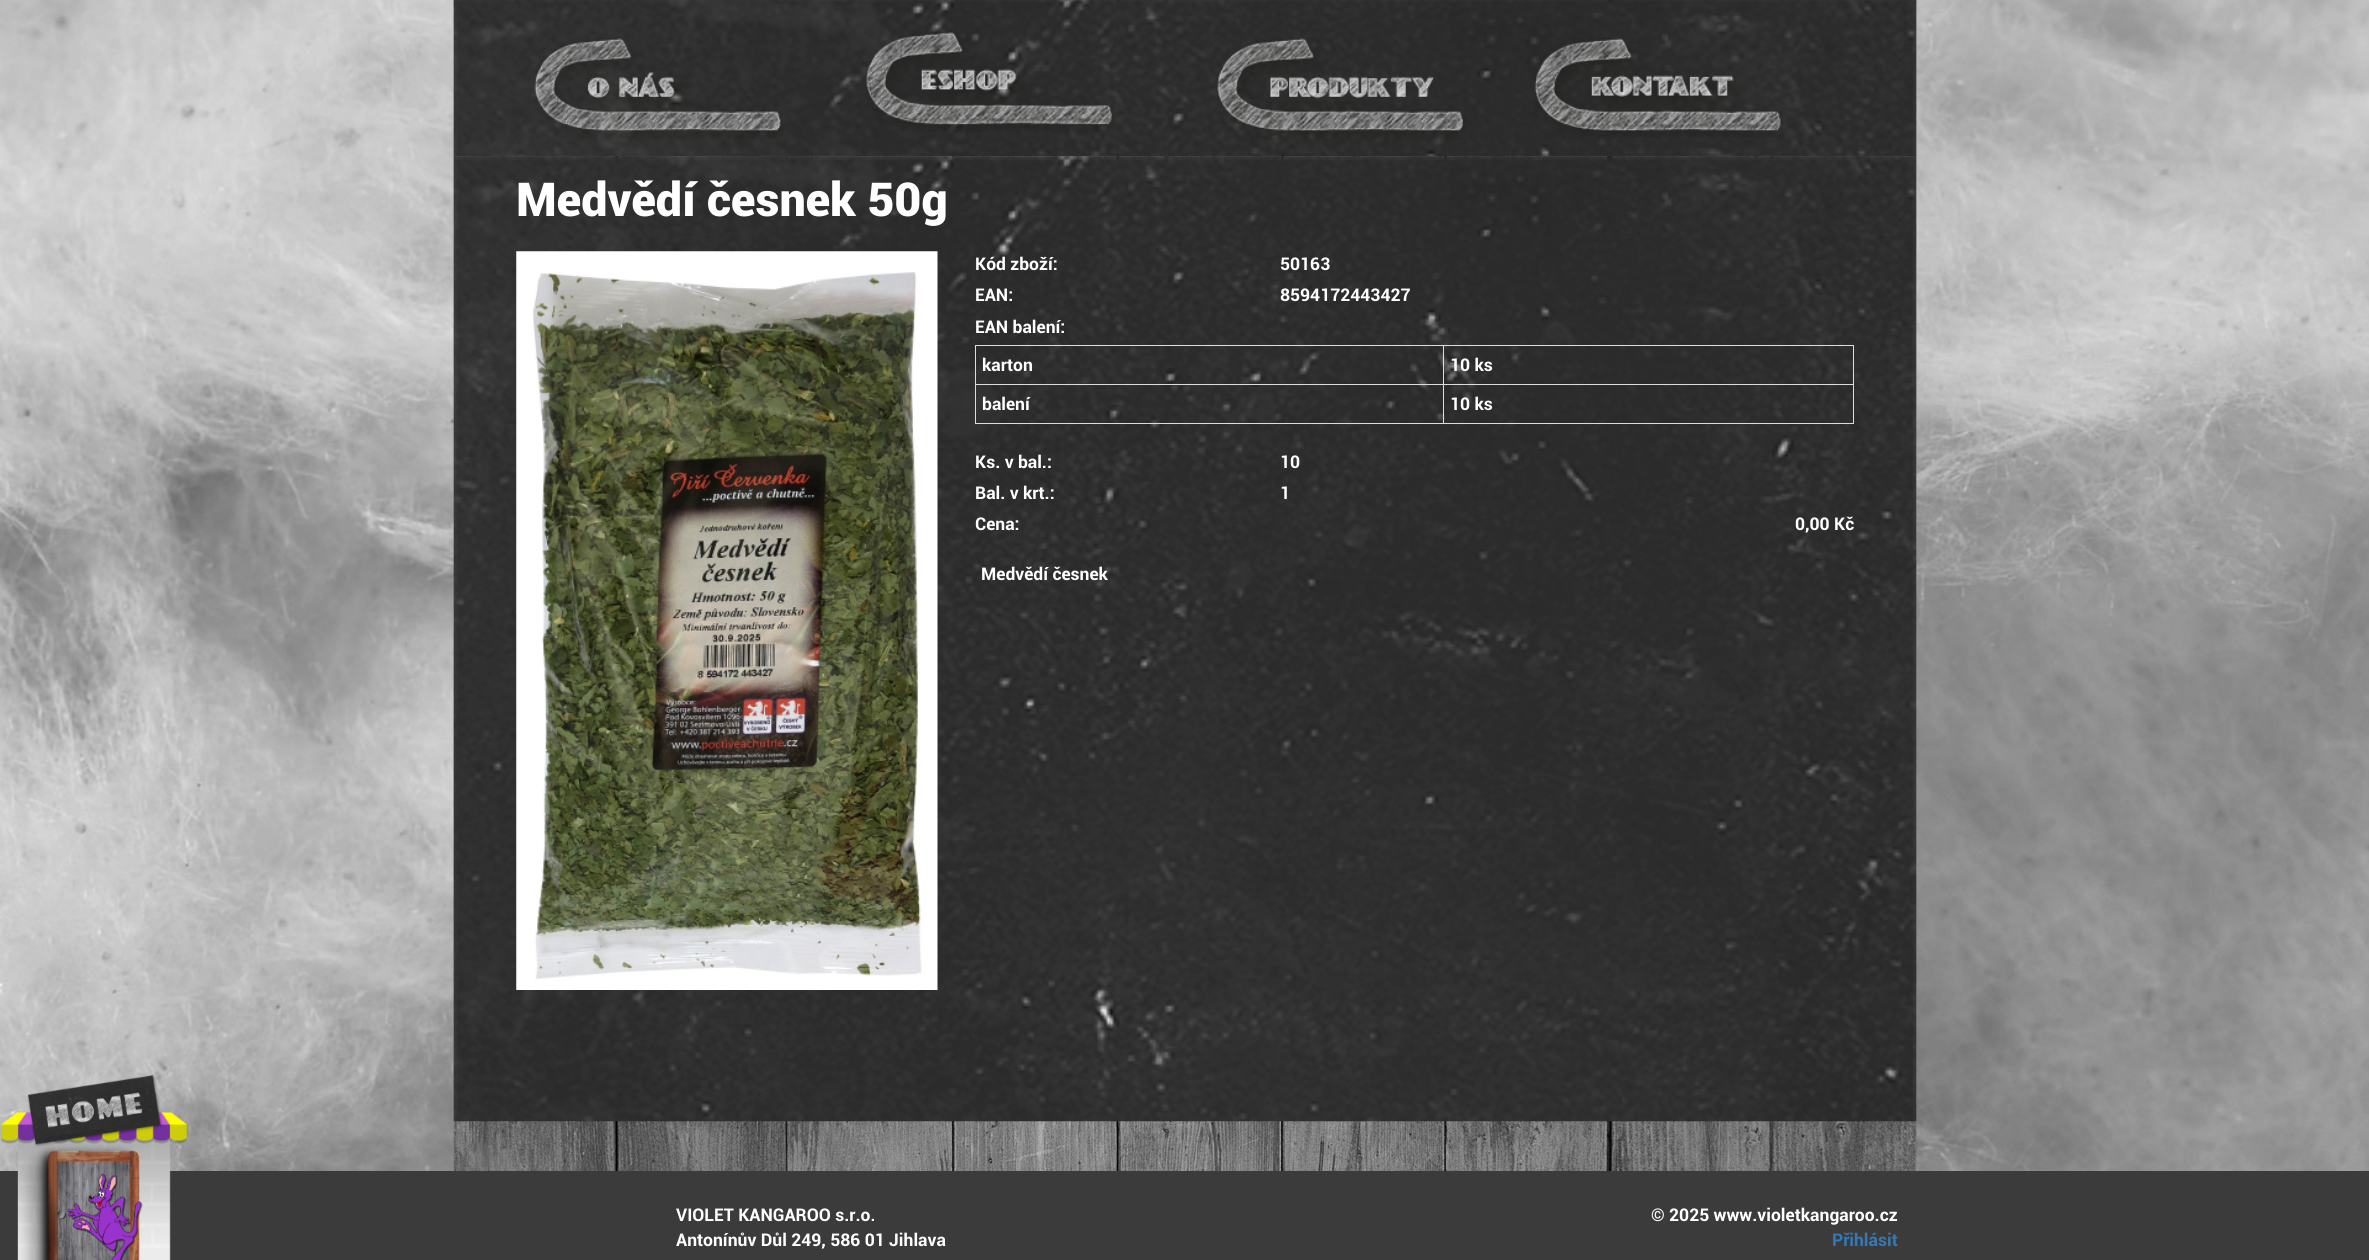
#include <cairo/cairo.h>
#include <math.h>
#include <stddef.h>

static cairo_t *cr;

static void use_color(int r, int g, int b) {
  cairo_set_source_rgb(cr, r / 255.0, g / 255.0, b / 255.0);
}

static void text(double x, double y, const char *s, const char *family, double size, int italic, int bold, int r, int g, int b) {
  cairo_select_font_face(cr, family, italic ? CAIRO_FONT_SLANT_ITALIC : CAIRO_FONT_SLANT_NORMAL,
    bold ? CAIRO_FONT_WEIGHT_BOLD : CAIRO_FONT_WEIGHT_NORMAL);
  cairo_set_font_size(cr, size);
  use_color(r, g, b);
  cairo_move_to(cr, x, y);
  cairo_show_text(cr, s);
}

static void box(double x, double y, double w, double h, int r, int g, int b) {
  use_color(r, g, b);
  cairo_rectangle(cr, x, y, w, h);
  cairo_fill(cr);
}

static void picture(const char *path, double x, double y, double w, double h) {
  cairo_surface_t *image = cairo_image_surface_create_from_png(path);
  cairo_save(cr);
  cairo_set_source_surface(cr, image, x, y);
  cairo_rectangle(cr, x, y, w, h);
  cairo_fill(cr);
  cairo_restore(cr);
  cairo_surface_destroy(image);
}

static void draw(void) {
  use_color(255, 255, 255);
  cairo_paint(cr);
  picture("img_01.png", 0, 0, 2369, 1171);
  picture("img_02.png", 453, 0, 1464, 1171);
  picture("img_03.png", 453, 0, 1464, 157);
  picture("img_04.png", 534, 38, 249, 101);
  picture("img_05.png", 866, 32, 249, 100);
  picture("img_06.png", 1217, 38, 249, 102);
  picture("img_07.png", 1534, 38, 249, 99);
  picture("img_08.png", 453, 156, 1464, 966);
  picture("img_09.png", 516, 251, 422, 739);
  box(975, 345, 879, 1, 221, 221, 221);
  box(1853, 345, 1, 79, 221, 221, 221);
  box(975, 423, 879, 1, 221, 221, 221);
  box(975, 345, 1, 79, 221, 221, 221);
  box(1443, 384, 411, 1, 221, 221, 221);
  box(1443, 384, 1, 40, 221, 221, 221);
  box(975, 384, 469, 1, 221, 221, 221);
  box(1443, 345, 1, 40, 221, 221, 221);
  box(0, 1171, 2369, 89, 59, 59, 59);
  picture("img_10.png", 0, 1074, 188, 186);
  text(516, 216, "Medvědí česnek 50g", "Roboto Black", 46.75, 0, 0, 255, 255, 255);
  text(975, 270, "Kód zboží:", "Roboto", 17.5, 0, 1, 255, 255, 255);
  text(1280, 270, "50163", "Roboto", 17.5, 0, 1, 255, 255, 255);
  text(975, 301, "EAN:", "Roboto", 17.5, 0, 1, 255, 255, 255);
  text(1280, 301, "8594172443427", "Roboto", 17.5, 0, 1, 255, 255, 255);
  text(975, 333, "EAN balení:", "Roboto", 17.5, 0, 1, 255, 255, 255);
  text(982, 371, "karton", "Roboto", 17.5, 0, 1, 255, 255, 255);
  text(1450, 371, "10 ks", "Roboto", 17.5, 0, 1, 255, 255, 255);
  text(982, 410, "balení", "Roboto", 17.5, 0, 1, 255, 255, 255);
  text(1450, 410, "10 ks", "Roboto", 17.5, 0, 1, 255, 255, 255);
  text(975, 468, "Ks. v bal.:", "Roboto", 17.5, 0, 1, 255, 255, 255);
  text(1280, 468, "10", "Roboto", 17.5, 0, 1, 255, 255, 255);
  text(975, 499, "Bal. v krt.:", "Roboto", 17.5, 0, 1, 255, 255, 255);
  text(1280, 499, "1", "Roboto", 17.5, 0, 1, 255, 255, 255);
  text(975, 530, "Cena:", "Roboto", 17.5, 0, 1, 255, 255, 255);
  text(1795, 530, "0,00 Kč", "Roboto", 17.5, 0, 1, 255, 255, 255);
  text(981, 580, "Medvědí česnek", "Roboto", 17.5, 0, 1, 255, 255, 255);
  text(676, 1221, "VIOLET KANGAROO s.r.o.", "Roboto", 17.5, 0, 1, 255, 255, 255);
  text(676, 1246, "Antonínův Důl 249, 586 01 Jihlava", "Roboto", 17.5, 0, 1, 255, 255, 255);
  text(1651, 1221, "© 2025 www.violetkangaroo.cz", "Roboto", 17.5, 0, 1, 255, 255, 255);
  text(1832, 1246, "Přihlásit", "Roboto", 17.5, 0, 1, 51, 122, 183);
}

int main(void) {
  cairo_surface_t *surface = cairo_image_surface_create(CAIRO_FORMAT_RGB24, 2369, 1260);
  cr = cairo_create(surface);
  cairo_font_options_t *options = cairo_font_options_create();
  cairo_font_options_set_hint_metrics(options, CAIRO_HINT_METRICS_OFF);
  cairo_font_options_set_hint_style(options, CAIRO_HINT_STYLE_NONE);
  cairo_set_font_options(cr, options);
  cairo_set_miter_limit(cr, 4);
  draw();
  cairo_surface_write_to_png(surface, "out.png");
  cairo_font_options_destroy(options);
  cairo_destroy(cr);
  cairo_surface_destroy(surface);
  return 0;
}
